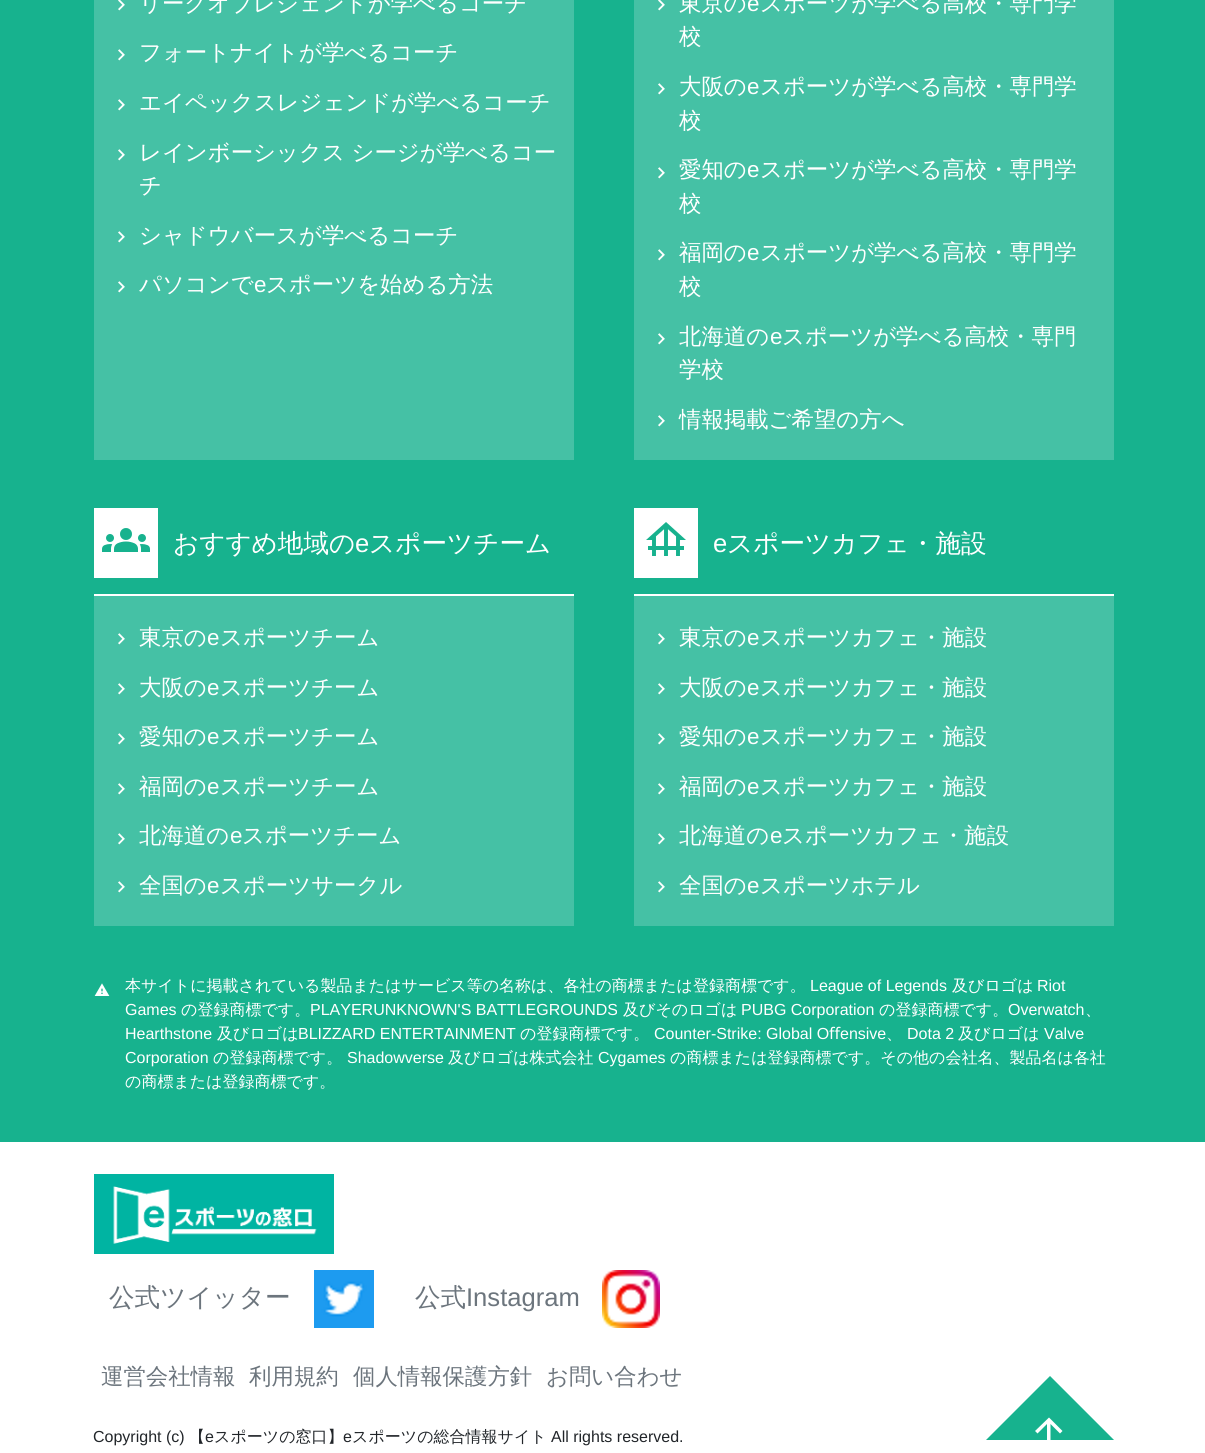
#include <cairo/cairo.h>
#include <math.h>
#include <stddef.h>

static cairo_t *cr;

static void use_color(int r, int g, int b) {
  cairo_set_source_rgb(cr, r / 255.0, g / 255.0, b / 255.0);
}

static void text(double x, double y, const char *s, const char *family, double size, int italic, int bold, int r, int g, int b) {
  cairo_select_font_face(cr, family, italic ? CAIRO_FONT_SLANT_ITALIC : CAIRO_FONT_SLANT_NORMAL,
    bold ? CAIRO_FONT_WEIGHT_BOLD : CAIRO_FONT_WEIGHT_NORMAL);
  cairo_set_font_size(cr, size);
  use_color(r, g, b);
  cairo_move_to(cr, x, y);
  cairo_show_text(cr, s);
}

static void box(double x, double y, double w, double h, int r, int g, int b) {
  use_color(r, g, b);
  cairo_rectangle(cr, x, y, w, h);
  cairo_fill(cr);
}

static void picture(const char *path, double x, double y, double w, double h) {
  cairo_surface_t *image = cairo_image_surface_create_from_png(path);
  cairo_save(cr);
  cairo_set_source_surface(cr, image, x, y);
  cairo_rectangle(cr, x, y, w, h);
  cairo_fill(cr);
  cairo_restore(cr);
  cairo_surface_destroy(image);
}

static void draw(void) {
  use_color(255, 255, 255);
  cairo_paint(cr);
  box(0, 0, 1205, 1142, 23, 178, 142);
  box(94, 0, 480, 460, 69, 193, 165);
  picture("img_01.png", 118, 0, 7, 11);
  picture("img_02.png", 118, 49, 7, 12);
  picture("img_02.png", 118, 99, 7, 12);
  picture("img_02.png", 118, 149, 7, 12);
  picture("img_02.png", 118, 231, 7, 12);
  picture("img_02.png", 118, 281, 7, 12);
  box(634, 0, 480, 460, 69, 193, 165);
  picture("img_01.png", 658, 0, 7, 11);
  picture("img_02.png", 658, 83, 7, 12);
  picture("img_02.png", 658, 167, 7, 12);
  picture("img_02.png", 658, 249, 7, 12);
  picture("img_02.png", 658, 333, 7, 12);
  picture("img_02.png", 658, 415, 7, 12);
  box(94, 596, 480, 330, 69, 193, 165);
  box(94, 508, 64, 70, 255, 255, 255);
  picture("img_03.png", 102, 528, 48, 24);
  box(94, 594, 480, 2, 255, 255, 255);
  picture("img_02.png", 118, 633, 7, 12);
  picture("img_02.png", 118, 683, 7, 12);
  picture("img_02.png", 118, 733, 7, 12);
  picture("img_02.png", 118, 783, 7, 12);
  picture("img_02.png", 118, 833, 7, 12);
  picture("img_02.png", 118, 881, 7, 12);
  box(634, 596, 480, 330, 69, 193, 165);
  box(634, 508, 64, 70, 255, 255, 255);
  picture("img_04.png", 646, 522, 40, 34);
  box(634, 594, 480, 2, 255, 255, 255);
  picture("img_02.png", 658, 633, 7, 12);
  picture("img_02.png", 658, 683, 7, 12);
  picture("img_02.png", 658, 733, 7, 12);
  picture("img_02.png", 658, 783, 7, 12);
  picture("img_02.png", 658, 833, 7, 12);
  picture("img_02.png", 658, 881, 7, 12);
  picture("img_05.png", 94, 983, 16, 13);
  picture("img_06.png", 94, 1174, 240, 80);
  picture("img_07.png", 314, 1270, 60, 58);
  picture("img_08.png", 602, 1270, 58, 58);
  use_color(23, 178, 142);
  cairo_new_path(cr);
  cairo_move_to(cr, 1114, 1440);
  cairo_line_to(cr, 986, 1440);
  cairo_line_to(cr, 1050, 1376);
  cairo_close_path(cr);
  cairo_fill(cr);
  use_color(255, 255, 255);
  cairo_new_path(cr);
  cairo_move_to(cr, 1035, 1431);
  cairo_line_to(cr, 1049, 1417.5);
  cairo_line_to(cr, 1062.5, 1431);
  cairo_line_to(cr, 1060, 1433.5);
  cairo_line_to(cr, 1050.5, 1424);
  cairo_line_to(cr, 1050.5, 1445);
  cairo_line_to(cr, 1047, 1445);
  cairo_line_to(cr, 1047, 1424);
  cairo_line_to(cr, 1037.5, 1433.5);
  cairo_close_path(cr);
  cairo_fill(cr);
  text(139, 11, "リーグオブレジェンドが学べるコーチ", "WenQuanYi Zen Hei Medium", 22.4, 0, 0, 255, 255, 255);
  text(139, 60, "フォートナイトが学べるコーチ", "WenQuanYi Zen Hei Medium", 22.4, 0, 0, 255, 255, 255);
  text(139, 110, "エイペックスレジェンドが学べるコーチ", "WenQuanYi Zen Hei Medium", 22.4, 0, 0, 255, 255, 255);
  text(139, 160, "レインボーシックス シージが学べるコー", "WenQuanYi Zen Hei Medium", 22.4, 0, 0, 255, 255, 255);
  text(139, 193, "チ", "WenQuanYi Zen Hei Medium", 22.4, 0, 0, 255, 255, 255);
  text(139, 243, "シャドウバースが学べるコーチ", "WenQuanYi Zen Hei Medium", 22.4, 0, 0, 255, 255, 255);
  text(139, 292, "パソコンで", "WenQuanYi Zen Hei Medium", 22.4, 0, 0, 255, 255, 255);
  text(254, 292, "e", "Liberation Sans", 22.4, 0, 0, 255, 255, 255);
  text(266, 292, "スポーツを始める方法", "WenQuanYi Zen Hei Medium", 22.4, 0, 0, 255, 255, 255);
  text(679, 11, "東京の", "WenQuanYi Zen Hei Medium", 22.4, 0, 0, 255, 255, 255);
  text(747, 11, "e", "Liberation Sans", 22.4, 0, 0, 255, 255, 255);
  text(760, 11, "スポーツが学べる高校・専門学", "WenQuanYi Zen Hei Medium", 22.4, 0, 0, 255, 255, 255);
  text(679, 44, "校", "WenQuanYi Zen Hei Medium", 22.4, 0, 0, 255, 255, 255);
  text(679, 94, "大阪の", "WenQuanYi Zen Hei Medium", 22.4, 0, 0, 255, 255, 255);
  text(747, 94, "e", "Liberation Sans", 22.4, 0, 0, 255, 255, 255);
  text(760, 94, "スポーツが学べる高校・専門学", "WenQuanYi Zen Hei Medium", 22.4, 0, 0, 255, 255, 255);
  text(679, 128, "校", "WenQuanYi Zen Hei Medium", 22.4, 0, 0, 255, 255, 255);
  text(679, 177, "愛知の", "WenQuanYi Zen Hei Medium", 22.4, 0, 0, 255, 255, 255);
  text(747, 177, "e", "Liberation Sans", 22.4, 0, 0, 255, 255, 255);
  text(760, 177, "スポーツが学べる高校・専門学", "WenQuanYi Zen Hei Medium", 22.4, 0, 0, 255, 255, 255);
  text(679, 211, "校", "WenQuanYi Zen Hei Medium", 22.4, 0, 0, 255, 255, 255);
  text(679, 260, "福岡の", "WenQuanYi Zen Hei Medium", 22.4, 0, 0, 255, 255, 255);
  text(747, 260, "e", "Liberation Sans", 22.4, 0, 0, 255, 255, 255);
  text(760, 260, "スポーツが学べる高校・専門学", "WenQuanYi Zen Hei Medium", 22.4, 0, 0, 255, 255, 255);
  text(679, 294, "校", "WenQuanYi Zen Hei Medium", 22.4, 0, 0, 255, 255, 255);
  text(679, 344, "北海道の", "WenQuanYi Zen Hei Medium", 22.4, 0, 0, 255, 255, 255);
  text(770, 344, "e", "Liberation Sans", 22.4, 0, 0, 255, 255, 255);
  text(782, 344, "スポーツが学べる高校・専門", "WenQuanYi Zen Hei Medium", 22.4, 0, 0, 255, 255, 255);
  text(679, 377, "学校", "WenQuanYi Zen Hei Medium", 22.4, 0, 0, 255, 255, 255);
  text(679, 427, "情報掲載ご希望の方へ", "WenQuanYi Zen Hei Medium", 22.4, 0, 0, 255, 255, 255);
  text(173, 552, "おすすめ地域の", "WenQuanYi Zen Hei Medium", 25.6, 0, 0, 255, 255, 255);
  text(355, 552, "e", "Liberation Sans", 25.6, 0, 0, 255, 255, 255);
  text(369, 552, "スポーツチーム", "WenQuanYi Zen Hei Medium", 25.6, 0, 0, 255, 255, 255);
  text(139, 645, "東京の", "WenQuanYi Zen Hei Medium", 22.4, 0, 0, 255, 255, 255);
  text(207, 645, "e", "Liberation Sans", 22.4, 0, 0, 255, 255, 255);
  text(220, 645, "スポーツチーム", "WenQuanYi Zen Hei Medium", 22.4, 0, 0, 255, 255, 255);
  text(139, 695, "大阪の", "WenQuanYi Zen Hei Medium", 22.4, 0, 0, 255, 255, 255);
  text(207, 695, "e", "Liberation Sans", 22.4, 0, 0, 255, 255, 255);
  text(220, 695, "スポーツチーム", "WenQuanYi Zen Hei Medium", 22.4, 0, 0, 255, 255, 255);
  text(139, 744, "愛知の", "WenQuanYi Zen Hei Medium", 22.4, 0, 0, 255, 255, 255);
  text(207, 744, "e", "Liberation Sans", 22.4, 0, 0, 255, 255, 255);
  text(220, 744, "スポーツチーム", "WenQuanYi Zen Hei Medium", 22.4, 0, 0, 255, 255, 255);
  text(139, 794, "福岡の", "WenQuanYi Zen Hei Medium", 22.4, 0, 0, 255, 255, 255);
  text(207, 794, "e", "Liberation Sans", 22.4, 0, 0, 255, 255, 255);
  text(220, 794, "スポーツチーム", "WenQuanYi Zen Hei Medium", 22.4, 0, 0, 255, 255, 255);
  text(139, 843, "北海道の", "WenQuanYi Zen Hei Medium", 22.4, 0, 0, 255, 255, 255);
  text(230, 843, "e", "Liberation Sans", 22.4, 0, 0, 255, 255, 255);
  text(242, 843, "スポーツチーム", "WenQuanYi Zen Hei Medium", 22.4, 0, 0, 255, 255, 255);
  text(139, 893, "全国の", "WenQuanYi Zen Hei Medium", 22.4, 0, 0, 255, 255, 255);
  text(207, 893, "e", "Liberation Sans", 22.4, 0, 0, 255, 255, 255);
  text(220, 893, "スポーツサークル", "WenQuanYi Zen Hei Medium", 22.4, 0, 0, 255, 255, 255);
  text(713, 552, "e", "Liberation Sans", 25.6, 0, 0, 255, 255, 255);
  text(727, 552, "スポーツカフェ・施設", "WenQuanYi Zen Hei Medium", 25.6, 0, 0, 255, 255, 255);
  text(679, 645, "東京の", "WenQuanYi Zen Hei Medium", 22.4, 0, 0, 255, 255, 255);
  text(747, 645, "e", "Liberation Sans", 22.4, 0, 0, 255, 255, 255);
  text(760, 645, "スポーツカフェ・施設", "WenQuanYi Zen Hei Medium", 22.4, 0, 0, 255, 255, 255);
  text(679, 695, "大阪の", "WenQuanYi Zen Hei Medium", 22.4, 0, 0, 255, 255, 255);
  text(747, 695, "e", "Liberation Sans", 22.4, 0, 0, 255, 255, 255);
  text(760, 695, "スポーツカフェ・施設", "WenQuanYi Zen Hei Medium", 22.4, 0, 0, 255, 255, 255);
  text(679, 744, "愛知の", "WenQuanYi Zen Hei Medium", 22.4, 0, 0, 255, 255, 255);
  text(747, 744, "e", "Liberation Sans", 22.4, 0, 0, 255, 255, 255);
  text(760, 744, "スポーツカフェ・施設", "WenQuanYi Zen Hei Medium", 22.4, 0, 0, 255, 255, 255);
  text(679, 794, "福岡の", "WenQuanYi Zen Hei Medium", 22.4, 0, 0, 255, 255, 255);
  text(747, 794, "e", "Liberation Sans", 22.4, 0, 0, 255, 255, 255);
  text(760, 794, "スポーツカフェ・施設", "WenQuanYi Zen Hei Medium", 22.4, 0, 0, 255, 255, 255);
  text(679, 843, "北海道の", "WenQuanYi Zen Hei Medium", 22.4, 0, 0, 255, 255, 255);
  text(770, 843, "e", "Liberation Sans", 22.4, 0, 0, 255, 255, 255);
  text(782, 843, "スポーツカフェ・施設", "WenQuanYi Zen Hei Medium", 22.4, 0, 0, 255, 255, 255);
  text(679, 893, "全国の", "WenQuanYi Zen Hei Medium", 22.4, 0, 0, 255, 255, 255);
  text(747, 893, "e", "Liberation Sans", 22.4, 0, 0, 255, 255, 255);
  text(760, 893, "スポーツホテル", "WenQuanYi Zen Hei Medium", 22.4, 0, 0, 255, 255, 255);
  text(125, 991, "本サイトに掲載されている製品またはサービス等の名称は、各社の商標または登録商標です。", "WenQuanYi Zen Hei Medium", 16, 0, 0, 255, 255, 255);
  text(810, 991, "League of Legends", "Liberation Sans", 16, 0, 0, 255, 255, 255);
  text(952, 991, "及びロゴは", "WenQuanYi Zen Hei Medium", 16, 0, 0, 255, 255, 255);
  text(1037, 991, "Riot", "Liberation Sans", 16, 0, 0, 255, 255, 255);
  text(125, 1015, "Games", "Liberation Sans", 16, 0, 0, 255, 255, 255);
  text(181, 1015, "の登録商標です。", "WenQuanYi Zen Hei Medium", 16, 0, 0, 255, 255, 255);
  text(310, 1015, "PLAYERUNKNOWN'S BATTLEGROUNDS", "Liberation Sans", 16, 0, 0, 255, 255, 255);
  text(623, 1015, "及びそのロゴは", "WenQuanYi Zen Hei Medium", 16, 0, 0, 255, 255, 255);
  text(741, 1015, "PUBG Corporation", "Liberation Sans", 16, 0, 0, 255, 255, 255);
  text(879, 1015, "の登録商標です。", "WenQuanYi Zen Hei Medium", 16, 0, 0, 255, 255, 255);
  text(1008, 1015, "Overwatch", "Liberation Sans", 16, 0, 0, 255, 255, 255);
  text(1085, 1015, "、", "WenQuanYi Zen Hei Medium", 16, 0, 0, 255, 255, 255);
  text(125, 1039, "Hearthstone", "Liberation Sans", 16, 0, 0, 255, 255, 255);
  text(217, 1039, "及びロゴは", "WenQuanYi Zen Hei Medium", 16, 0, 0, 255, 255, 255);
  text(298, 1039, "BLIZZARD ENTERTAINMENT", "Liberation Sans", 16, 0, 0, 255, 255, 255);
  text(520, 1039, "の登録商標です。", "WenQuanYi Zen Hei Medium", 16, 0, 0, 255, 255, 255);
  text(654, 1039, "Counter-Strike: Global O", "Liberation Sans", 16, 0, 0, 255, 255, 255);
  text(829, 1039, "ﬀ", "Noto Sans", 16, 0, 0, 255, 255, 255);
  text(840, 1039, "ensive", "Liberation Sans", 16, 0, 0, 255, 255, 255);
  text(886, 1039, "、", "WenQuanYi Zen Hei Medium", 16, 0, 0, 255, 255, 255);
  text(907, 1039, "Dota 2", "Liberation Sans", 16, 0, 0, 255, 255, 255);
  text(958, 1039, "及びロゴは", "WenQuanYi Zen Hei Medium", 16, 0, 0, 255, 255, 255);
  text(1044, 1039, "Valve", "Liberation Sans", 16, 0, 0, 255, 255, 255);
  text(125, 1063, "Corporation", "Liberation Sans", 16, 0, 0, 255, 255, 255);
  text(213, 1063, "の登録商標です。", "WenQuanYi Zen Hei Medium", 16, 0, 0, 255, 255, 255);
  text(347, 1063, "Shadowverse", "Liberation Sans", 16, 0, 0, 255, 255, 255);
  text(448, 1063, "及びロゴは株式会社", "WenQuanYi Zen Hei Medium", 16, 0, 0, 255, 255, 255);
  text(598, 1063, "Cygames", "Liberation Sans", 16, 0, 0, 255, 255, 255);
  text(670, 1063, "の商標または登録商標です。その他の会社名、製品名は各社", "WenQuanYi Zen Hei Medium", 16, 0, 0, 255, 255, 255);
  text(125, 1087, "の商標または登録商標です。", "WenQuanYi Zen Hei Medium", 16, 0, 0, 255, 255, 255);
  text(109, 1306, "公式ツイッター", "WenQuanYi Zen Hei Medium", 25.6, 0, 0, 108, 117, 125);
  text(415, 1306, "公式", "WenQuanYi Zen Hei Medium", 25.6, 0, 0, 108, 117, 125);
  text(466, 1306, "Instagram", "Liberation Sans", 25.6, 0, 0, 108, 117, 125);
  text(101, 1384, "運営会社情報", "WenQuanYi Zen Hei Medium", 22.4, 0, 0, 108, 117, 125);
  text(249, 1384, "利用規約", "WenQuanYi Zen Hei Medium", 22.4, 0, 0, 108, 117, 125);
  text(353, 1384, "個人情報保護方針", "WenQuanYi Zen Hei Medium", 22.4, 0, 0, 108, 117, 125);
  text(546, 1384, "お問い合わせ", "WenQuanYi Zen Hei Medium", 22.4, 0, 0, 108, 117, 125);
  text(93, 1442, "Copyright (c)", "Liberation Sans", 16, 0, 0, 33, 37, 41);
  text(189, 1442, "【", "WenQuanYi Zen Hei Medium", 16, 0, 0, 33, 37, 41);
  text(205, 1442, "e", "Liberation Sans", 16, 0, 0, 33, 37, 41);
  text(214, 1442, "スポーツの窓口】", "WenQuanYi Zen Hei Medium", 16, 0, 0, 33, 37, 41);
  text(343, 1442, "e", "Liberation Sans", 16, 0, 0, 33, 37, 41);
  text(352, 1442, "スポーツの総合情報サイト", "WenQuanYi Zen Hei Medium", 16, 0, 0, 33, 37, 41);
  text(551, 1442, "All rights reserved.", "Liberation Sans", 16, 0, 0, 33, 37, 41);
}

int main(void) {
  cairo_surface_t *surface = cairo_image_surface_create(CAIRO_FORMAT_RGB24, 1205, 1453);
  cr = cairo_create(surface);
  cairo_font_options_t *options = cairo_font_options_create();
  cairo_font_options_set_hint_metrics(options, CAIRO_HINT_METRICS_OFF);
  cairo_font_options_set_hint_style(options, CAIRO_HINT_STYLE_NONE);
  cairo_set_font_options(cr, options);
  cairo_set_miter_limit(cr, 4);
  draw();
  cairo_surface_write_to_png(surface, "out.png");
  cairo_font_options_destroy(options);
  cairo_destroy(cr);
  cairo_surface_destroy(surface);
  return 0;
}
